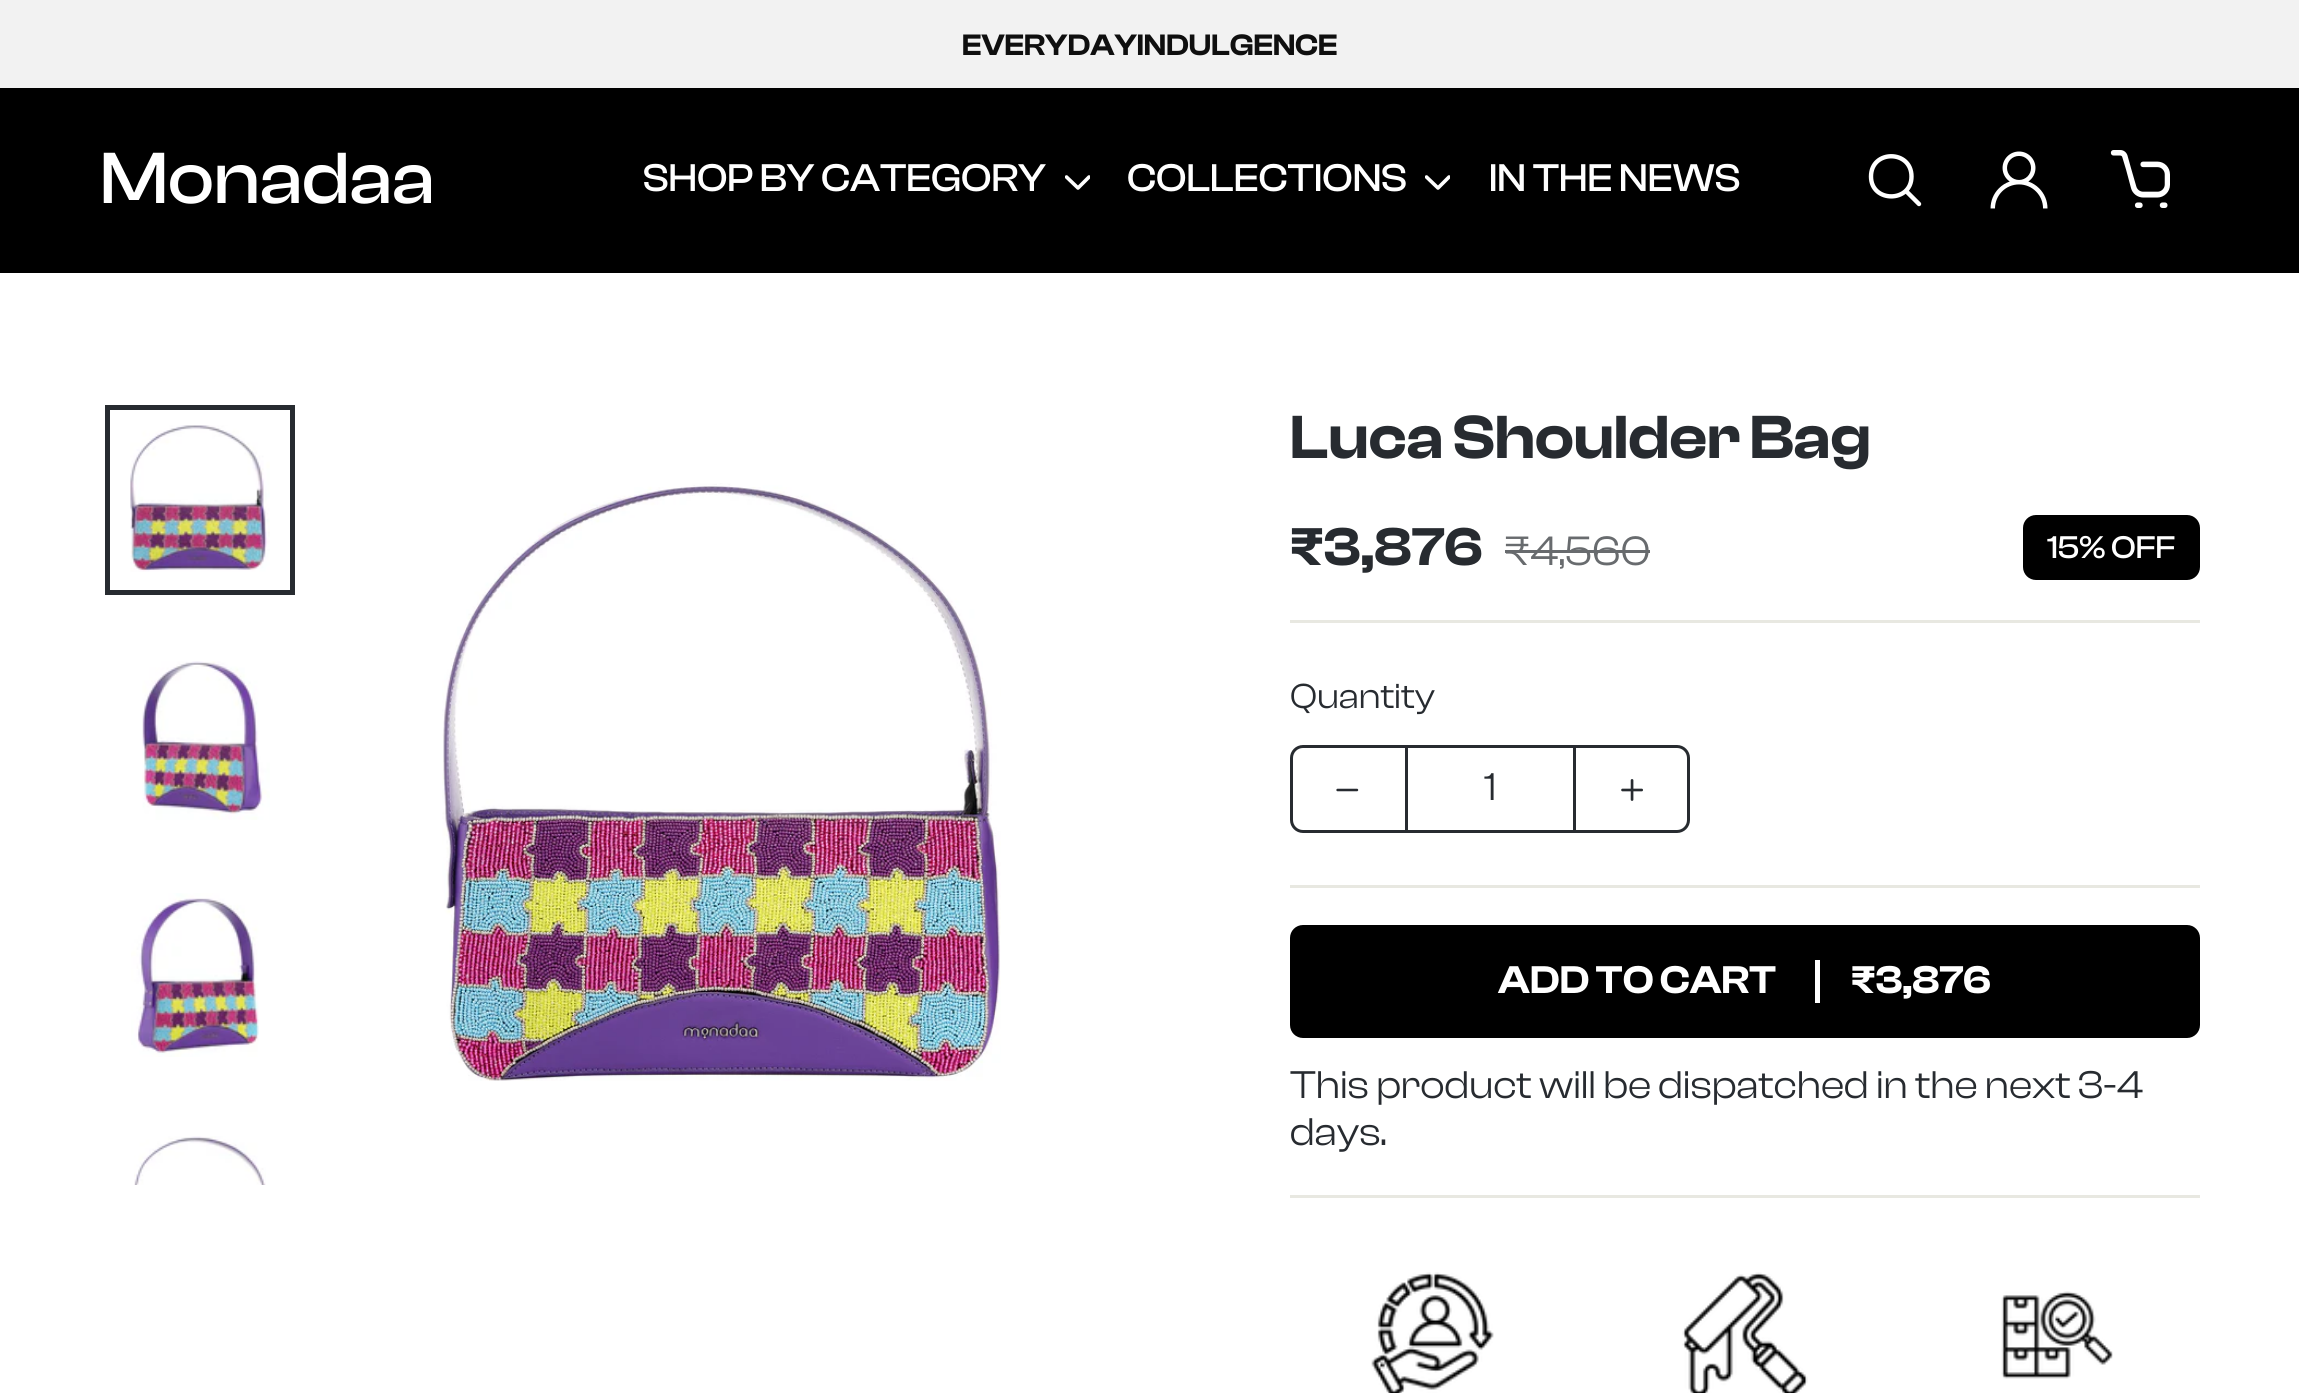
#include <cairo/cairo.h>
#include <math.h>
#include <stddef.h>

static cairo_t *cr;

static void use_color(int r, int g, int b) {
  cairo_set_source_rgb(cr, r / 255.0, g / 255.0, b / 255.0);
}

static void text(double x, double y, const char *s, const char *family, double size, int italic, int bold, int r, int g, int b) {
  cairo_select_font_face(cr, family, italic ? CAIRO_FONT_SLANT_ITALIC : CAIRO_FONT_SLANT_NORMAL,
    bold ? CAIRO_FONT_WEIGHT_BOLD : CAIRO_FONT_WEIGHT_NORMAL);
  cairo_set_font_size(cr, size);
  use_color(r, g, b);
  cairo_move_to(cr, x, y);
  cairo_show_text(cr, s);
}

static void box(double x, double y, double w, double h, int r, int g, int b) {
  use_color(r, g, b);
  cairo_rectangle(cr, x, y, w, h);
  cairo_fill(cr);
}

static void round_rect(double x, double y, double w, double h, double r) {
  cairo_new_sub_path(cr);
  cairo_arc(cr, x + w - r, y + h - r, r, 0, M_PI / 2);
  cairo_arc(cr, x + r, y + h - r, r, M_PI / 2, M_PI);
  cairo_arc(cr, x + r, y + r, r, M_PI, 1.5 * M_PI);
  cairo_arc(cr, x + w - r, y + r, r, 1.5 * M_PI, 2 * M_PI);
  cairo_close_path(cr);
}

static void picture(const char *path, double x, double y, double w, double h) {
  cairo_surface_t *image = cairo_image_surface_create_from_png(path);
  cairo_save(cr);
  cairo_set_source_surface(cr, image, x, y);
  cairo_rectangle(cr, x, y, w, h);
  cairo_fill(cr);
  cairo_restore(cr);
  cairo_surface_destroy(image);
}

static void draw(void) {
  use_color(255, 255, 255);
  cairo_paint(cr);
  box(0, 0, 2299, 88, 242, 242, 242);
  box(0, 88, 2299, 185, 0, 0, 0);
  cairo_save(cr);
  cairo_rectangle(cr, 1065, 170, 25, 25);
  cairo_clip(cr);
  cairo_new_path(cr);
  cairo_move_to(cr, 1066.5, 177);
  cairo_line_to(cr, 1078, 188);
  cairo_line_to(cr, 1089, 177);
  use_color(255, 255, 255);
  cairo_set_line_width(cr, 3.6);
  cairo_set_line_cap(cr, CAIRO_LINE_CAP_ROUND);
  cairo_set_line_join(cr, CAIRO_LINE_JOIN_ROUND);
  cairo_stroke(cr);
  cairo_restore(cr);
  cairo_save(cr);
  cairo_rectangle(cr, 1425, 170, 25, 25);
  cairo_clip(cr);
  cairo_new_path(cr);
  cairo_move_to(cr, 1426.5, 177);
  cairo_line_to(cr, 1438, 188);
  cairo_line_to(cr, 1449, 177);
  use_color(255, 255, 255);
  cairo_set_line_width(cr, 3.6);
  cairo_set_line_cap(cr, CAIRO_LINE_CAP_ROUND);
  cairo_set_line_join(cr, CAIRO_LINE_JOIN_ROUND);
  cairo_stroke(cr);
  cairo_restore(cr);
  cairo_new_path(cr);
  cairo_move_to(cr, 1911.5, 176.5);
  cairo_curve_to(cr, 1911.5, 203, 1871, 203, 1871, 176.5);
  cairo_curve_to(cr, 1871, 149.5, 1911.5, 149.5, 1911.5, 176.5);
  cairo_close_path(cr);
  cairo_move_to(cr, 1919, 204);
  cairo_line_to(cr, 1906, 191);
  use_color(255, 255, 255);
  cairo_set_line_width(cr, 4.4);
  cairo_set_line_cap(cr, CAIRO_LINE_CAP_ROUND);
  cairo_set_line_join(cr, CAIRO_LINE_JOIN_ROUND);
  cairo_stroke(cr);
  picture("img_01.png", 1990, 151, 58, 58);
  picture("img_02.png", 2110, 150, 60, 58);
  picture("img_03.png", 130, 425, 140, 147);
  cairo_rectangle(cr, 107.5, 407.5, 185, 185);
  use_color(39, 43, 48);
  cairo_set_line_width(cr, 5);
  cairo_set_line_cap(cr, CAIRO_LINE_CAP_BUTT);
  cairo_set_line_join(cr, CAIRO_LINE_JOIN_MITER);
  cairo_stroke(cr);
  picture("img_04.png", 142, 661, 128, 159);
  picture("img_05.png", 131, 893, 128, 164);
  picture("img_06.png", 134, 1136, 132, 49);
  picture("img_07.png", 442, 483, 559, 598);
  box(1505, 550, 145, 3, 104, 107, 110);
  use_color(0, 0, 0);
  round_rect(2023, 515, 177, 65, 13);
  cairo_fill(cr);
  box(1290, 620, 910, 3, 232, 232, 225);
  round_rect(1291.5, 746.5, 397, 85, 11.5);
  use_color(39, 43, 48);
  cairo_set_line_width(cr, 3);
  cairo_stroke(cr);
  box(1405, 745, 3, 88, 39, 43, 48);
  picture("img_08.png", 1336, 788, 23, 4);
  box(1573, 745, 3, 88, 39, 43, 48);
  picture("img_09.png", 1621, 779, 22, 22);
  box(1290, 885, 910, 3, 232, 232, 225);
  use_color(0, 0, 0);
  round_rect(1290, 925, 910, 113, 13);
  cairo_fill(cr);
  box(1815, 960, 5, 43, 255, 255, 255);
  box(1290, 1195, 910, 3, 232, 232, 225);
  picture("img_10.png", 1371, 1272, 123, 121);
  picture("img_11.png", 1682, 1272, 126, 121);
  picture("img_12.png", 2001, 1291, 112, 88);
  text(962, 55, "EVERYDAYINDULGENCE", "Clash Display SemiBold", 30.6, 0, 0, 15, 15, 15);
  text(100, 203, "Monadaa", "Clash Display Medium", 75, 0, 0, 255, 255, 255);
  text(643, 191, "SHOP BY CATEGORY", "Clash Display Medium", 40, 0, 0, 255, 255, 255);
  text(1127, 191, "COLLECTIONS", "Clash Display Medium", 40, 0, 0, 255, 255, 255);
  text(1489, 191, "IN THE NEWS", "Clash Display Medium", 40, 0, 0, 255, 255, 255);
  text(1290, 458, "Luca Shoulder Bag", "Clash Display SemiBold", 63, 0, 0, 39, 43, 48);
  text(1290, 565, "₹3,876", "Clash Display SemiBold", 55, 0, 0, 39, 43, 48);
  text(1504, 565, "₹4,560", "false", 42.5, 0, 0, 104, 107, 110);
  text(2047, 558, "15% OFF", "Clash Display Medium", 32.5, 0, 0, 255, 255, 255);
  text(1290, 708, "Quantity", "false", 36, 0, 0, 39, 43, 48);
  text(1484, 800, "1", "false", 40, 0, 0, 39, 43, 48);
  text(1498, 993, "ADD TO CART", "Clash Display SemiBold", 40, 0, 0, 255, 255, 255);
  text(1851, 993, "₹3,876", "Clash Display SemiBold", 40, 0, 0, 255, 255, 255);
  text(1290, 1098, "This product will be dispatched in the next 3-4", "false", 40, 0, 0, 39, 43, 48);
  text(1290, 1145, "days.", "false", 40, 0, 0, 39, 43, 48);
}

int main(void) {
  cairo_surface_t *surface = cairo_image_surface_create(CAIRO_FORMAT_RGB24, 2299, 1393);
  cr = cairo_create(surface);
  cairo_font_options_t *options = cairo_font_options_create();
  cairo_font_options_set_hint_metrics(options, CAIRO_HINT_METRICS_OFF);
  cairo_font_options_set_hint_style(options, CAIRO_HINT_STYLE_NONE);
  cairo_set_font_options(cr, options);
  cairo_set_miter_limit(cr, 4);
  draw();
  cairo_surface_write_to_png(surface, "out.png");
  cairo_font_options_destroy(options);
  cairo_destroy(cr);
  cairo_surface_destroy(surface);
  return 0;
}
